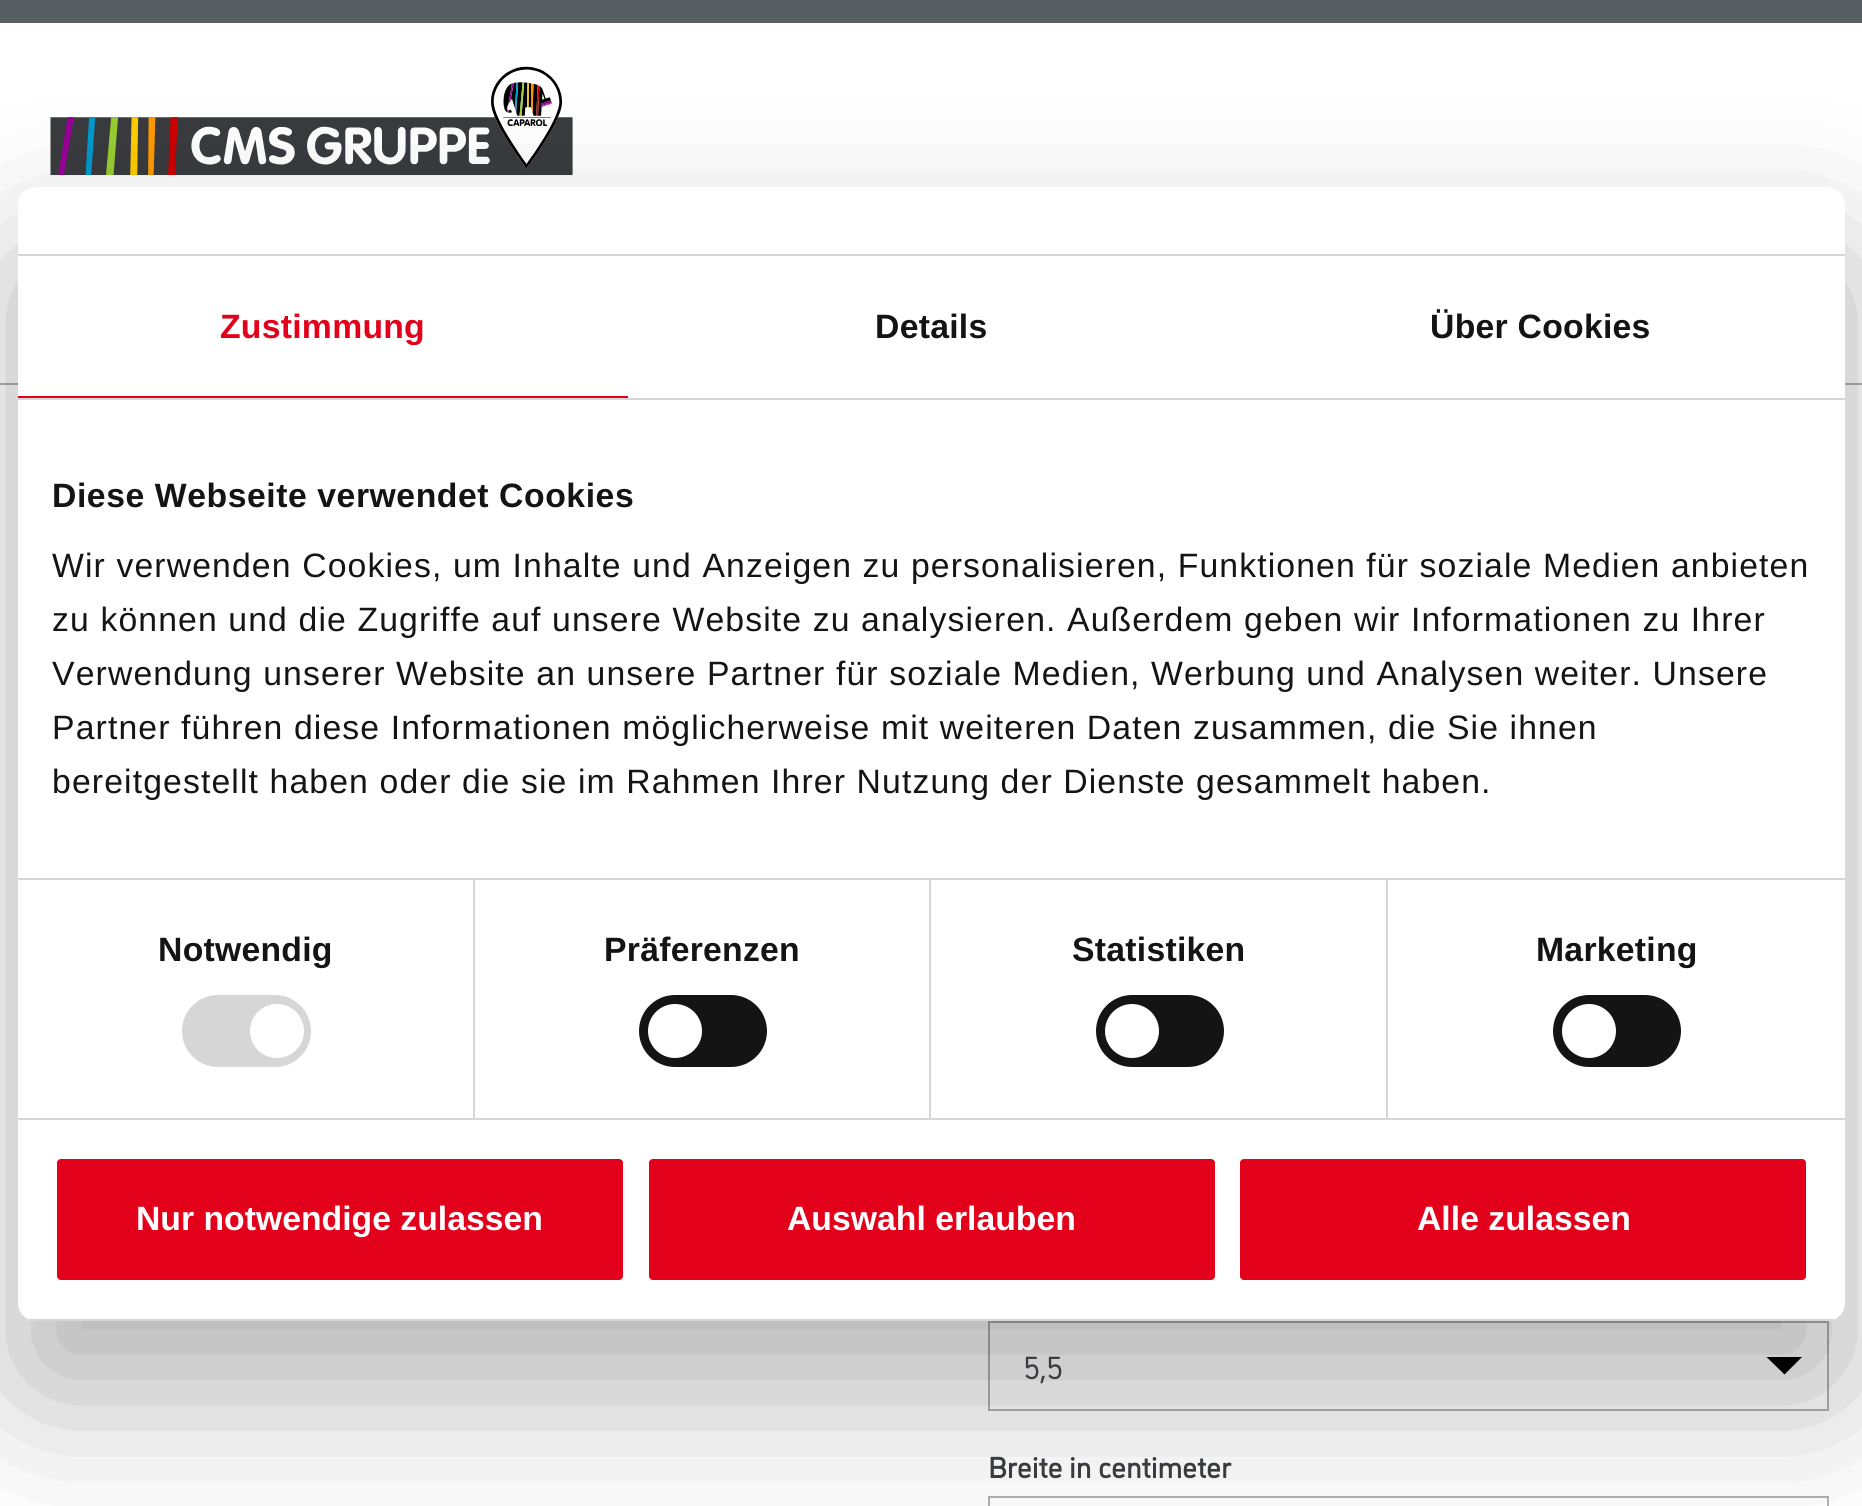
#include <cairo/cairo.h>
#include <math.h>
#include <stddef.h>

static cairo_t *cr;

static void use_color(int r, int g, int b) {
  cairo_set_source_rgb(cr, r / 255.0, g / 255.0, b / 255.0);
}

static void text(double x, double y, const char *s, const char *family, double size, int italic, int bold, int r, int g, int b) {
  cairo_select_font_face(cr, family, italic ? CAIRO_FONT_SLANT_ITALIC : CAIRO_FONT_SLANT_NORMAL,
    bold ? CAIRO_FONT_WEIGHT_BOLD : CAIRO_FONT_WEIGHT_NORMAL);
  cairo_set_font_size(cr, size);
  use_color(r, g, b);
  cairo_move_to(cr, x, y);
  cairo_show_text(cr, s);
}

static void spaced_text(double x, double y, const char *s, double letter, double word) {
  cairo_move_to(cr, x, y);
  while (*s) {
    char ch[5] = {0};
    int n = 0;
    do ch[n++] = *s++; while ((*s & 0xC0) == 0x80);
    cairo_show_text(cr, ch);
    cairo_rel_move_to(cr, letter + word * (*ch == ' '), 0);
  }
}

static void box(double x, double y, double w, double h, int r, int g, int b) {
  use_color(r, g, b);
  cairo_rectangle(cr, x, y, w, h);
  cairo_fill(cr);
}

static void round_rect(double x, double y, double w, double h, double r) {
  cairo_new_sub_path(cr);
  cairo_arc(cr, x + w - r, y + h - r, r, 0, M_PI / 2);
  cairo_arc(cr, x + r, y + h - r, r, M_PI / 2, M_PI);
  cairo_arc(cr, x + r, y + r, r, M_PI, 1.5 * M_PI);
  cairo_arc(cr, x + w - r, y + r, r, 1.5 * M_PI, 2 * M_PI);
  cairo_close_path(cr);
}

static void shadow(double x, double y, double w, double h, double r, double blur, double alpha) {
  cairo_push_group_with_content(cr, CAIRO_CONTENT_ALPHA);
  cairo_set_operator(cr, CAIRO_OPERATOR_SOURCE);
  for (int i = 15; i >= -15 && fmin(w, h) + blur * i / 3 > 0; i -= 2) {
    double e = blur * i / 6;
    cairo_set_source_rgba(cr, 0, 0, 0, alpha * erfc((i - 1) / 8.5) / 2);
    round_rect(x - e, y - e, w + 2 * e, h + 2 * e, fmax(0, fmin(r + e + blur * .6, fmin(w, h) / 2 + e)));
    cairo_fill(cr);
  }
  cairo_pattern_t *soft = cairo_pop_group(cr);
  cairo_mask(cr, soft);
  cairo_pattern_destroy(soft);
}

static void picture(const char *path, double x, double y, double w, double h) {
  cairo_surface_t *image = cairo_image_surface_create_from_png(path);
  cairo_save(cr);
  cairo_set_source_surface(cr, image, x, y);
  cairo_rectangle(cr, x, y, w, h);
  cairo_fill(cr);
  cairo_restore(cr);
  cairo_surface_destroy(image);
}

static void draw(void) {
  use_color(255, 255, 255);
  cairo_paint(cr);
  picture("img_01.png", 50, 66, 523, 110);
  box(0, 383, 1862, 2, 178, 178, 178);
  use_color(0, 0, 0);
  cairo_new_path(cr);
  cairo_move_to(cr, 1766.5, 1357);
  cairo_line_to(cr, 1802, 1357);
  cairo_line_to(cr, 1784.5, 1374.5);
  cairo_close_path(cr);
  cairo_fill(cr);
  cairo_rectangle(cr, 989, 1322, 839, 88);
  use_color(178, 178, 178);
  cairo_stroke(cr);
  cairo_rectangle(cr, 989, 1497, 839, 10);
  cairo_stroke(cr);
  use_color(0, 0, 0);
  shadow(18, 259, 1827, 1134, 18, 76.5, 0.3);
  use_color(255, 255, 255);
  round_rect(18, 187, 1827, 1134, 18);
  cairo_fill(cr);
  box(18, 254, 1827, 2, 214, 214, 214);
  box(18, 398, 1827, 2, 214, 214, 214);
  box(18, 396, 610, 2, 226, 0, 26);
  box(18, 878, 1827, 2, 214, 214, 214);
  box(18, 1118, 1827, 2, 214, 214, 214);
  box(473, 880, 2, 238, 214, 214, 214);
  round_rect(182, 995, 129, 72, 36);
  cairo_fill(cr);
  use_color(255, 255, 255);
  cairo_arc(cr, 277, 1031, 27, 0, 2 * M_PI);
  cairo_fill(cr);
  box(929, 880, 2, 238, 214, 214, 214);
  use_color(20, 20, 20);
  round_rect(639, 995, 128, 72, 36);
  cairo_fill(cr);
  use_color(255, 255, 255);
  cairo_arc(cr, 675, 1031, 27, 0, 2 * M_PI);
  cairo_fill(cr);
  box(1386, 880, 2, 238, 214, 214, 214);
  use_color(20, 20, 20);
  round_rect(1096, 995, 128, 72, 36);
  cairo_fill(cr);
  use_color(255, 255, 255);
  cairo_arc(cr, 1132, 1031, 27, 0, 2 * M_PI);
  cairo_fill(cr);
  use_color(20, 20, 20);
  round_rect(1553, 995, 128, 72, 36);
  cairo_fill(cr);
  use_color(255, 255, 255);
  cairo_arc(cr, 1589, 1031, 27, 0, 2 * M_PI);
  cairo_fill(cr);
  cairo_save(cr);
  round_rect(18, 187, 1827, 1134, 18);
  cairo_clip(cr);
  box(28, 1319, 1807, 2, 214, 214, 214);
  cairo_restore(cr);
  use_color(226, 0, 26);
  round_rect(54.5, 1156.5, 571, 126, 6.5);
  cairo_fill_preserve(cr);
  use_color(255, 255, 255);
  cairo_set_line_width(cr, 5);
  cairo_stroke(cr);
  use_color(226, 0, 26);
  round_rect(646.5, 1156.5, 571, 126, 6.5);
  cairo_fill_preserve(cr);
  use_color(255, 255, 255);
  cairo_stroke(cr);
  use_color(226, 0, 26);
  round_rect(1237.5, 1156.5, 571, 126, 6.5);
  cairo_fill_preserve(cr);
  use_color(255, 255, 255);
  cairo_stroke(cr);
  box(0, 0, 1862, 23, 87, 95, 98);
  cairo_select_font_face(cr, "Liberation Sans", CAIRO_FONT_SLANT_NORMAL, CAIRO_FONT_WEIGHT_BOLD);
  cairo_set_font_size(cr, 33.75);
  use_color(226, 0, 26);
  spaced_text(220, 338, "Zustimmung", 0.25, 0);
  use_color(20, 20, 20);
  spaced_text(875, 338, "Details", 0.25, 0);
  spaced_text(1430, 338, "Über Cookies", 0.25, 0);
  spaced_text(52, 507, "Diese Webseite verwendet Cookies", 0.55, 0);
  cairo_select_font_face(cr, "Liberation Sans", CAIRO_FONT_SLANT_NORMAL, CAIRO_FONT_WEIGHT_NORMAL);
  spaced_text(52, 577, "Wir verwenden Cookies, um Inhalte und Anzeigen zu personalisieren, Funktionen für soziale Medien anbieten", 1.12, 0);
  spaced_text(52, 631, "zu können und die Zugriffe auf unsere Website zu analysieren. Außerdem geben wir Informationen zu Ihrer", 1.12, 0);
  spaced_text(52, 685, "Verwendung unserer Website an unsere Partner für soziale Medien, Werbung und Analysen weiter. Unsere", 1.12, 0);
  spaced_text(52, 739, "Partner führen diese Informationen möglicherweise mit weiteren Daten zusammen, die Sie ihnen", 1.12, 0);
  spaced_text(52, 793, "bereitgestellt haben oder die sie im Rahmen Ihrer Nutzung der Dienste gesammelt haben.", 1.12, 0);
  cairo_select_font_face(cr, "Liberation Sans", CAIRO_FONT_SLANT_NORMAL, CAIRO_FONT_WEIGHT_BOLD);
  spaced_text(158, 961, "Notwendig", 0.25, 0);
  spaced_text(604, 961, "Präferenzen", 0.25, 0);
  spaced_text(1072, 961, "Statistiken", 0.25, 0);
  spaced_text(1536, 961, "Marketing", 0.25, 0);
  text(136, 1230, "Nur notwendige zulassen", "Liberation Sans", 33.75, 0, 1, 255, 255, 255);
  text(787, 1230, "Auswahl erlauben", "Liberation Sans", 33.75, 0, 1, 255, 255, 255);
  text(1417, 1230, "Alle zulassen", "Liberation Sans", 33.75, 0, 1, 255, 255, 255);
  text(1024, 1379, "5,5", "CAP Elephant", 32, 0, 0, 57, 59, 62);
  text(988, 1478, "Breite in centimeter", "CAP Elephant", 29.25, 0, 1, 57, 59, 62);
}

int main(void) {
  cairo_surface_t *surface = cairo_image_surface_create(CAIRO_FORMAT_RGB24, 1862, 1506);
  cr = cairo_create(surface);
  cairo_font_options_t *options = cairo_font_options_create();
  cairo_font_options_set_hint_metrics(options, CAIRO_HINT_METRICS_OFF);
  cairo_font_options_set_hint_style(options, CAIRO_HINT_STYLE_NONE);
  cairo_set_font_options(cr, options);
  cairo_set_miter_limit(cr, 4);
  draw();
  cairo_surface_write_to_png(surface, "out.png");
  cairo_font_options_destroy(options);
  cairo_destroy(cr);
  cairo_surface_destroy(surface);
  return 0;
}
